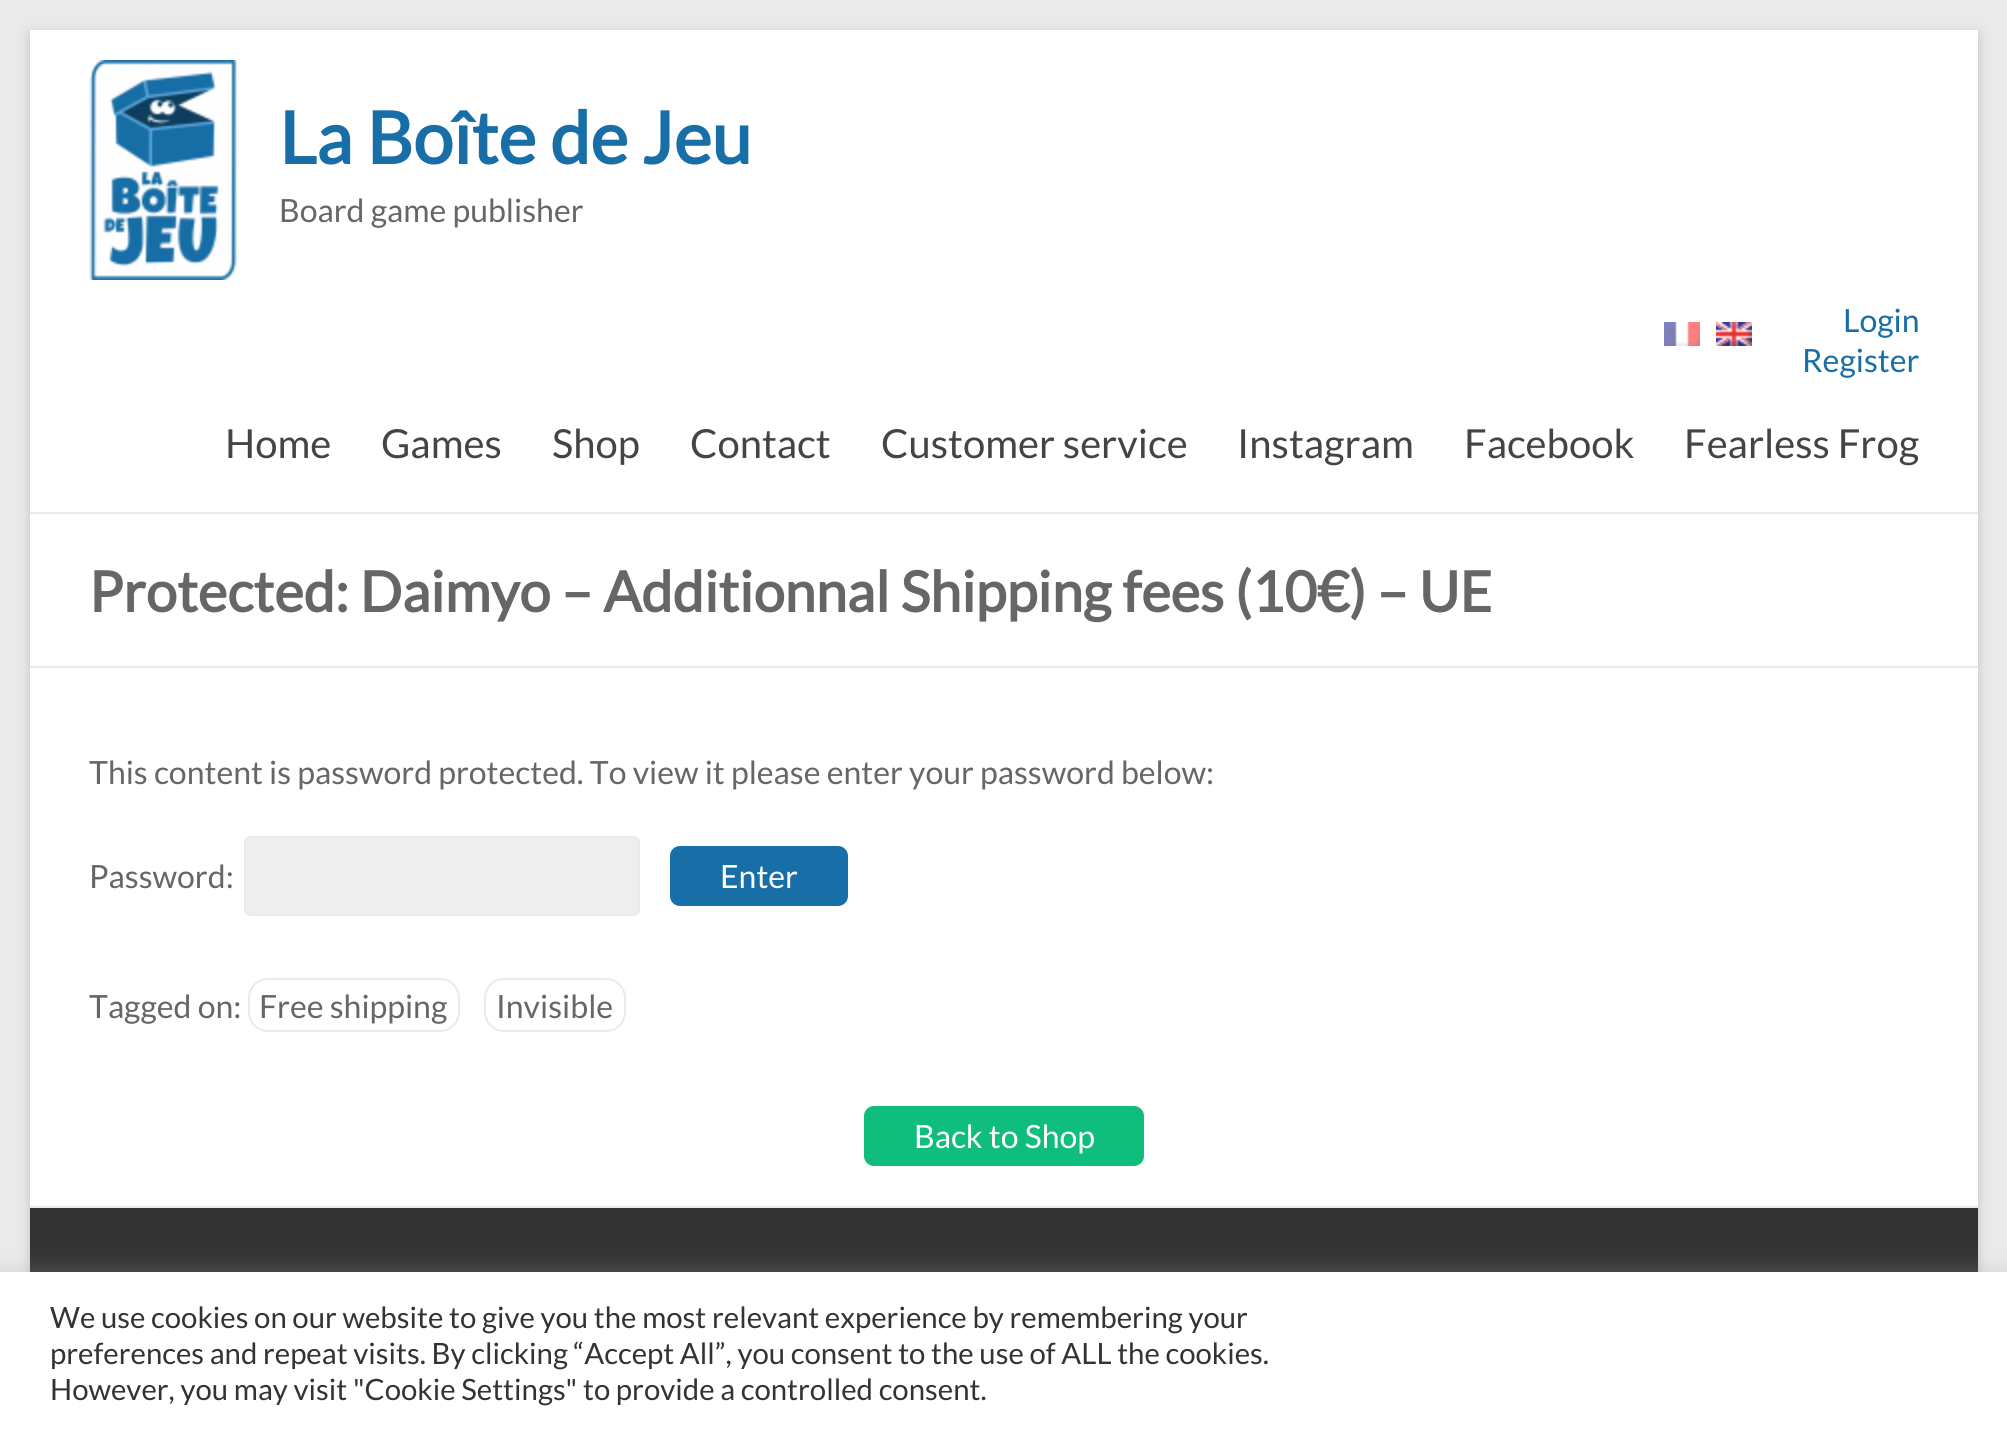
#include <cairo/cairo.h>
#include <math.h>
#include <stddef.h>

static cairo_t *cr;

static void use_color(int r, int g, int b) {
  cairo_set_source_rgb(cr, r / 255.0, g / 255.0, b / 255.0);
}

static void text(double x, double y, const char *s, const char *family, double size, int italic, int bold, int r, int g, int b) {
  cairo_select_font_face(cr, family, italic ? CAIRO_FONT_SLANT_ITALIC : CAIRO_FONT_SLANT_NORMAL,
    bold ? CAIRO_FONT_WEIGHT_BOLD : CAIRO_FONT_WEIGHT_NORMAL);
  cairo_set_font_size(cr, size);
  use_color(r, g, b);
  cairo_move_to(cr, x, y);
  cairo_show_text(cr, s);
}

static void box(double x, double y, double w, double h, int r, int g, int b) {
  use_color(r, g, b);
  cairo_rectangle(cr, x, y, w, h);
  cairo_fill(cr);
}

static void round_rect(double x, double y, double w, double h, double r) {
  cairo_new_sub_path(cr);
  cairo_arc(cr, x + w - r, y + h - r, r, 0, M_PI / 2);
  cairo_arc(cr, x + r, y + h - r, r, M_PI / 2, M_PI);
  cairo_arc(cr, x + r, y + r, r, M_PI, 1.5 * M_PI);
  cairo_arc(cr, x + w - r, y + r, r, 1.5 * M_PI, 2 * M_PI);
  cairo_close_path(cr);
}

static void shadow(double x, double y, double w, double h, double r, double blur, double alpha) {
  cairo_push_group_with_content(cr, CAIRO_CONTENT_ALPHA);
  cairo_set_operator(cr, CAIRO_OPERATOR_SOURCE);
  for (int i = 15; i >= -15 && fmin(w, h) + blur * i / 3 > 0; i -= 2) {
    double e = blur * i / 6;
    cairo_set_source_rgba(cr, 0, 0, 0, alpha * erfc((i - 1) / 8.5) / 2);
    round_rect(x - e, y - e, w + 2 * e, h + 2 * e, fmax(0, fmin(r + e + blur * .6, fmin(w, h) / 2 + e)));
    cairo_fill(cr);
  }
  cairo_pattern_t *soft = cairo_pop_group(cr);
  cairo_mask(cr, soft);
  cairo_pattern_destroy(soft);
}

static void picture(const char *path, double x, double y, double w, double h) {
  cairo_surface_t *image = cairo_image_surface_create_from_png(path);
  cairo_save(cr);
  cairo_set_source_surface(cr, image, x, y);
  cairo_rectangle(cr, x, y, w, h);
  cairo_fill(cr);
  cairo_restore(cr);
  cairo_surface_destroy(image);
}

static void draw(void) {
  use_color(234, 234, 234);
  cairo_paint(cr);
  use_color(100, 100, 100);
  shadow(30, 34, 1948, 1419, 0, 6, 0.3);
  box(30, 30, 1948, 1176, 255, 255, 255);
  box(30, 512, 1948, 2, 234, 234, 234);
  picture("img_01.png", 89, 60, 148, 220);
  picture("img_02.png", 1664, 322, 36, 24);
  picture("img_03.png", 1716, 322, 36, 24);
  box(30, 666, 1948, 2, 234, 234, 234);
  use_color(238, 238, 238);
  round_rect(245, 837, 394, 78, 5);
  cairo_fill_preserve(cr);
  use_color(234, 234, 234);
  cairo_stroke(cr);
  use_color(24, 110, 166);
  round_rect(670, 846, 178, 60, 10);
  cairo_fill(cr);
  round_rect(249, 979, 210, 52, 19);
  use_color(234, 234, 234);
  cairo_stroke(cr);
  round_rect(485, 979, 140, 52, 19);
  cairo_stroke(cr);
  use_color(15, 190, 124);
  round_rect(864, 1106, 280, 60, 10);
  cairo_fill(cr);
  box(30, 1208, 1948, 64, 51, 51, 51);
  box(30, 1206, 1948, 2, 234, 234, 234);
  use_color(172, 171, 171);
  shadow(0, 1270, 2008, 164, 0, 10, 0.3);
  box(0, 1272, 2007, 163, 255, 255, 255);
  text(279, 164, "La Boîte de Jeu", "Lato", 72, 0, 1, 24, 110, 166);
  text(279, 222, "Board game publisher", "Lato", 32, 0, 0, 102, 102, 102);
  text(1843, 332, "Login", "Lato", 32, 0, 0, 24, 110, 166);
  text(1802, 372, "Register", "Lato", 32, 0, 0, 24, 110, 166);
  text(225, 458, "Home", "Lato", 40, 0, 0, 68, 68, 68);
  text(381, 458, "Games", "Lato", 40, 0, 0, 68, 68, 68);
  text(552, 458, "Shop", "Lato", 40, 0, 0, 68, 68, 68);
  text(690, 458, "Contact", "Lato", 40, 0, 0, 68, 68, 68);
  text(881, 458, "Customer service", "Lato", 40, 0, 0, 68, 68, 68);
  text(1237, 458, "Instagram", "Lato", 40, 0, 0, 68, 68, 68);
  text(1464, 458, "Facebook", "Lato", 40, 0, 0, 68, 68, 68);
  text(1684, 458, "Fearless Frog", "Lato", 40, 0, 0, 68, 68, 68);
  text(89, 612, "Protected: Daimyo – Additionnal Shipping fees (10€) – UE", "Lato", 56, 0, 1, 102, 102, 102);
  text(89, 784, "This content is password protected. To view it please enter your password below:", "Lato", 32, 0, 0, 102, 102, 102);
  text(89, 888, "Password:", "Lato", 32, 0, 0, 102, 102, 102);
  text(720, 888, "Enter", "Lato", 32, 0, 0, 255, 255, 255);
  text(89, 1018, "Tagged on:", "Lato", 32, 0, 0, 102, 102, 102);
  text(259, 1018, "Free shipping", "Lato", 32, 0, 0, 102, 102, 102);
  text(496, 1018, "Invisible", "Lato", 32, 0, 0, 102, 102, 102);
  text(914, 1148, "Back to Shop", "Lato", 32, 0, 0, 255, 255, 255);
  text(50, 1328, "We use cookies on our website to give you the most relevant experience by remembering your", "Lato", 29.35, 0, 0, 51, 51, 51);
  text(50, 1364, "preferences and repeat visits. By clicking “Accept All”, you consent to the use of ALL the cookies.", "Lato", 29.35, 0, 0, 51, 51, 51);
  text(50, 1400, "However, you may visit \"Cookie Settings\" to provide a controlled consent.", "Lato", 29.35, 0, 0, 51, 51, 51);
}

int main(void) {
  cairo_surface_t *surface = cairo_image_surface_create(CAIRO_FORMAT_RGB24, 2007, 1435);
  cr = cairo_create(surface);
  cairo_font_options_t *options = cairo_font_options_create();
  cairo_font_options_set_hint_metrics(options, CAIRO_HINT_METRICS_OFF);
  cairo_font_options_set_hint_style(options, CAIRO_HINT_STYLE_NONE);
  cairo_set_font_options(cr, options);
  cairo_set_miter_limit(cr, 4);
  draw();
  cairo_surface_write_to_png(surface, "out.png");
  cairo_font_options_destroy(options);
  cairo_destroy(cr);
  cairo_surface_destroy(surface);
  return 0;
}
